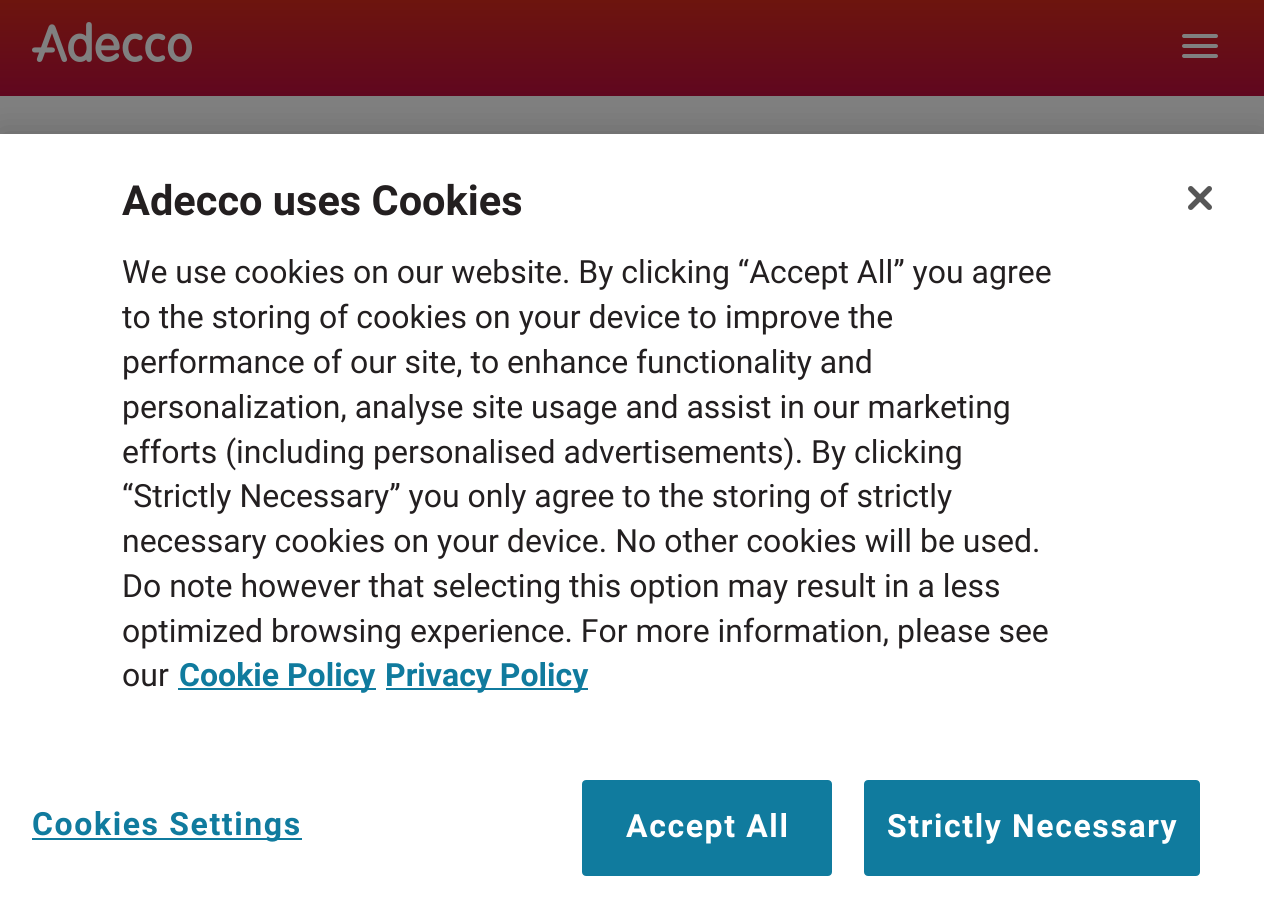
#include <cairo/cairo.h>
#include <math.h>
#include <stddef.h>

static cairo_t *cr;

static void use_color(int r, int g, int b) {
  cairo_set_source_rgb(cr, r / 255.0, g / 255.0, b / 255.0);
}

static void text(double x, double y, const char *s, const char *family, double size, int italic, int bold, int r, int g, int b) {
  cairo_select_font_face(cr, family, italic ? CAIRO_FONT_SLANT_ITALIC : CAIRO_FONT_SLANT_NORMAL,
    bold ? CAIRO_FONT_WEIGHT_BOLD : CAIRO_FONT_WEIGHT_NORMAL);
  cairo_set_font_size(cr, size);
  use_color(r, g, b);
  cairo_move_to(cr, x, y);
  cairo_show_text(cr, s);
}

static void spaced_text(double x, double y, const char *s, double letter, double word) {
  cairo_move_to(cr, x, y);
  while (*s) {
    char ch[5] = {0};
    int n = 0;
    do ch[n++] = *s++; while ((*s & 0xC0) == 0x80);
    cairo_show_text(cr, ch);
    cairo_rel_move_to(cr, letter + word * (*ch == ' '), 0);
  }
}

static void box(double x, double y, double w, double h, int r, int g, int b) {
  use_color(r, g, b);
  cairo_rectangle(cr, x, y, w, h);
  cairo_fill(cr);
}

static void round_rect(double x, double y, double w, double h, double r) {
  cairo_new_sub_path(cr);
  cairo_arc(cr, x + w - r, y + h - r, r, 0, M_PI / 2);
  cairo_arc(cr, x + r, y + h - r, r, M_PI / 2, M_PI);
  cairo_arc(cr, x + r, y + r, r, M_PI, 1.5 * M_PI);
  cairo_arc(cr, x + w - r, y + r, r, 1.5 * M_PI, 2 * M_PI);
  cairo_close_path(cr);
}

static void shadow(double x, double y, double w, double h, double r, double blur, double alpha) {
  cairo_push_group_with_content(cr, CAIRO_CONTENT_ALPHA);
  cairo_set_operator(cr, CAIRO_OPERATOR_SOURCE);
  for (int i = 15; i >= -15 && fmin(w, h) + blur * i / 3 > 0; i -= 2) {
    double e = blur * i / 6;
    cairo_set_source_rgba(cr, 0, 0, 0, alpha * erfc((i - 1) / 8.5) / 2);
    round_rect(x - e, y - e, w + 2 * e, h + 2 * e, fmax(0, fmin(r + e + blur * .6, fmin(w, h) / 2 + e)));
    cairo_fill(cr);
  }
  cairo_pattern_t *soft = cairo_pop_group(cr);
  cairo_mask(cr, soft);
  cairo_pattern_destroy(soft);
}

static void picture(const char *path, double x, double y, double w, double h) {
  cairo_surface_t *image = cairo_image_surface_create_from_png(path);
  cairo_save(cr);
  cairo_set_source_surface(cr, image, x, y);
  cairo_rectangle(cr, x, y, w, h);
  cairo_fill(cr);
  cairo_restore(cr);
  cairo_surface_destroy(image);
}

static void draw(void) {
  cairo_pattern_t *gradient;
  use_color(128, 128, 128);
  cairo_paint(cr);
  gradient = cairo_pattern_create_linear(632, 0, 632, 96);
  cairo_pattern_add_color_stop_rgba(gradient, 0, 0.427, 0.082, 0.055, 1);
  cairo_pattern_add_color_stop_rgba(gradient, 1, 0.376, 0.027, 0.122, 1);
  cairo_set_source(cr, gradient);
  cairo_pattern_destroy(gradient);
  cairo_rectangle(cr, 0, 0, 1264, 96);
  cairo_fill(cr);
  picture("img_01.png", 32, 22, 160, 40);
  picture("img_02.png", 1182, 34, 36, 24);
  use_color(0, 0, 0);
  shadow(0, 134, 1264, 784, 0, 18, 0.2);
  box(0, 134, 1264, 784, 255, 255, 255);
  box(178, 688, 198, 2, 16, 123, 158);
  box(386, 688, 202, 2, 16, 123, 158);
  box(32, 838, 270, 2, 16, 123, 158);
  round_rect(583, 781, 248, 94, 3);
  cairo_fill_preserve(cr);
  cairo_stroke(cr);
  round_rect(865, 781, 334, 94, 3);
  cairo_fill_preserve(cr);
  cairo_stroke(cr);
  picture("img_03.png", 1188, 186, 24, 24);
  text(122, 215, "Adecco uses Cookies", "Roboto", 41.5, 0, 1, 35, 31, 32);
  text(122, 283, "We use cookies on our website. By clicking “Accept All” you agree", "Roboto", 32, 0, 0, 35, 31, 32);
  text(122, 328, "to the storing of cookies on your device to improve the", "Roboto", 32, 0, 0, 35, 31, 32);
  text(122, 373, "performance of our site, to enhance functionality and", "Roboto", 32, 0, 0, 35, 31, 32);
  text(122, 418, "personalization, analyse site usage and assist in our marketing", "Roboto", 32, 0, 0, 35, 31, 32);
  text(122, 463, "efforts (including personalised advertisements). By clicking", "Roboto", 32, 0, 0, 35, 31, 32);
  text(122, 507, "“Strictly Necessary” you only agree to the storing of strictly", "Roboto", 32, 0, 0, 35, 31, 32);
  text(122, 552, "necessary cookies on your device. No other cookies will be used.", "Roboto", 32, 0, 0, 35, 31, 32);
  text(122, 597, "Do note however that selecting this option may result in a less", "Roboto", 32, 0, 0, 35, 31, 32);
  text(122, 642, "optimized browsing experience. For more information, please see", "Roboto", 32, 0, 0, 35, 31, 32);
  text(122, 686, "our", "Roboto", 32, 0, 0, 35, 31, 32);
  text(179, 686, "Cookie Policy", "Roboto", 32, 0, 1, 16, 123, 158);
  text(385, 686, "Privacy Policy", "Roboto", 32, 0, 1, 16, 123, 158);
  spaced_text(32, 835, "Cookies Settings", 1.6, 0);
  use_color(255, 255, 255);
  spaced_text(626, 837, "Accept All", 1.6, 0);
  spaced_text(887, 837, "Strictly Necessary", 1.6, 0);
}

int main(void) {
  cairo_surface_t *surface = cairo_image_surface_create(CAIRO_FORMAT_RGB24, 1264, 918);
  cr = cairo_create(surface);
  cairo_font_options_t *options = cairo_font_options_create();
  cairo_font_options_set_hint_metrics(options, CAIRO_HINT_METRICS_OFF);
  cairo_font_options_set_hint_style(options, CAIRO_HINT_STYLE_NONE);
  cairo_set_font_options(cr, options);
  cairo_set_miter_limit(cr, 4);
  draw();
  cairo_surface_write_to_png(surface, "out.png");
  cairo_font_options_destroy(options);
  cairo_destroy(cr);
  cairo_surface_destroy(surface);
  return 0;
}
